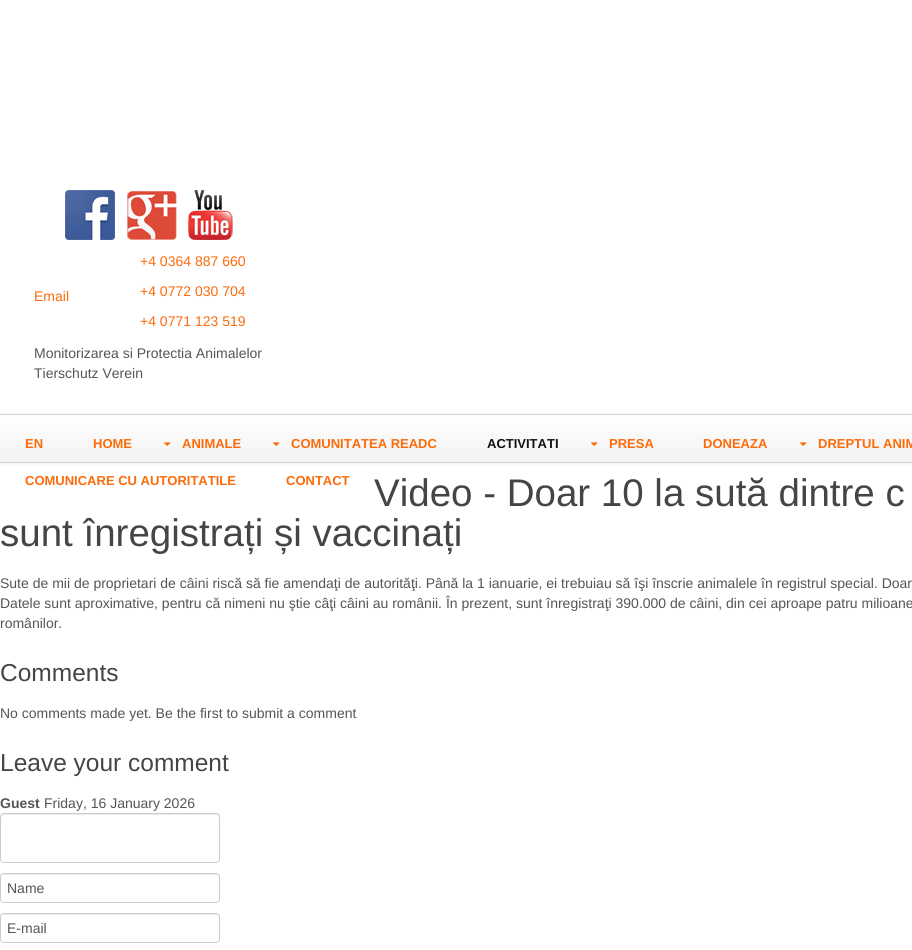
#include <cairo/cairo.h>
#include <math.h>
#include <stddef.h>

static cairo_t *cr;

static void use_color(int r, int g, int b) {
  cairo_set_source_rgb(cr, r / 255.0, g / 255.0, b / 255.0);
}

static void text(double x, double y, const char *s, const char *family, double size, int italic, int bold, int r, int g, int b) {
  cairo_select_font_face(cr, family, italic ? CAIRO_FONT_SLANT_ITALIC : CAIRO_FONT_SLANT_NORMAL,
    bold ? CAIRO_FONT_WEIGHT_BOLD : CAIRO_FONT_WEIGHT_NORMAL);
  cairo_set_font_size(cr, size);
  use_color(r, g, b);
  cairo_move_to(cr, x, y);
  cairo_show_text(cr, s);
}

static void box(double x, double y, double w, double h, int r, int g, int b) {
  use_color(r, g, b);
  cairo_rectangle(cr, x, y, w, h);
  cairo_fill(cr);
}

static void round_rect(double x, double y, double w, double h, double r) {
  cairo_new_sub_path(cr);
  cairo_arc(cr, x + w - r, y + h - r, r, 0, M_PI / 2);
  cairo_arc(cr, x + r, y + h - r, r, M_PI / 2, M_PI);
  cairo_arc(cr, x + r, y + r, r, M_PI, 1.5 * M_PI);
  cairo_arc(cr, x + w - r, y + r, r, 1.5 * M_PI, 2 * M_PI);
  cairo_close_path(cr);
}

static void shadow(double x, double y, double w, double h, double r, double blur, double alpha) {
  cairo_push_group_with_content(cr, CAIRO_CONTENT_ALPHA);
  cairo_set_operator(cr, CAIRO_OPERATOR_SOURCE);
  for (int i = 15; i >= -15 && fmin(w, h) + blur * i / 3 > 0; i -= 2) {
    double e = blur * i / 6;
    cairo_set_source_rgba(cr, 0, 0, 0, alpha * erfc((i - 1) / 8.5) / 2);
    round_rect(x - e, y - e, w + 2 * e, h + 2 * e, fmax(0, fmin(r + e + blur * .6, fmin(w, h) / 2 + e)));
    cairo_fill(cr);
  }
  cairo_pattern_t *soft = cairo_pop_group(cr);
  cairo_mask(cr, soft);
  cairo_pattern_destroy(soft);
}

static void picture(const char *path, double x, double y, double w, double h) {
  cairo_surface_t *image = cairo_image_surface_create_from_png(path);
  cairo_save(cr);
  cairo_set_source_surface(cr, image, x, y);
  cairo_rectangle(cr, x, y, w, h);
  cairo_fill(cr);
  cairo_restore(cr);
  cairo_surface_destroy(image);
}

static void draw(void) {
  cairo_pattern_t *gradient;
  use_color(255, 255, 255);
  cairo_paint(cr);
  picture("img_01.png", 65, 190, 50, 50);
  picture("img_02.png", 127, 191, 50, 49);
  picture("img_03.png", 188, 190, 45, 50);
  use_color(0, 0, 0);
  shadow(0, 415, 912, 49, 0, 2, 0.07);
  gradient = cairo_pattern_create_linear(456, 415, 456, 462);
  cairo_pattern_add_color_stop_rgba(gradient, 0, 1, 1, 1, 1);
  cairo_pattern_add_color_stop_rgba(gradient, 1, 0.949, 0.949, 0.949, 1);
  cairo_set_source(cr, gradient);
  cairo_pattern_destroy(gradient);
  cairo_rectangle(cr, 0, 415, 912, 47);
  cairo_fill(cr);
  box(0, 414, 912, 1, 212, 212, 212);
  box(0, 462, 912, 1, 212, 212, 212);
  picture("img_04.png", 164, 442, 7, 4);
  picture("img_04.png", 273, 442, 7, 4);
  picture("img_04.png", 591, 442, 7, 4);
  picture("img_04.png", 800, 442, 7, 4);
  use_color(236, 236, 236);
  cairo_new_path(cr);
  cairo_move_to(cr, 4, 815);
  cairo_line_to(cr, 216, 815);
  cairo_curve_to(cr, 218, 815, 219, 816, 219, 818);
  cairo_line_to(cr, 219, 817);
  cairo_curve_to(cr, 219, 815, 218, 814, 216, 814);
  cairo_line_to(cr, 4, 814);
  cairo_curve_to(cr, 2, 814, 1, 815, 1, 817);
  cairo_line_to(cr, 1, 818);
  cairo_curve_to(cr, 1, 816, 2, 815, 4, 815);
  cairo_close_path(cr);
  cairo_fill(cr);
  round_rect(0.5, 813.5, 219, 49, 3.5);
  use_color(204, 204, 204);
  cairo_set_line_width(cr, 1);
  cairo_stroke(cr);
  use_color(236, 236, 236);
  cairo_new_path(cr);
  cairo_move_to(cr, 4, 875);
  cairo_line_to(cr, 216, 875);
  cairo_curve_to(cr, 218, 875, 219, 876, 219, 878);
  cairo_line_to(cr, 219, 877);
  cairo_curve_to(cr, 219, 875, 218, 874, 216, 874);
  cairo_line_to(cr, 4, 874);
  cairo_curve_to(cr, 2, 874, 1, 875, 1, 877);
  cairo_line_to(cr, 1, 878);
  cairo_curve_to(cr, 1, 876, 2, 875, 4, 875);
  cairo_close_path(cr);
  cairo_fill(cr);
  round_rect(0.5, 873.5, 219, 29, 3.5);
  use_color(204, 204, 204);
  cairo_stroke(cr);
  use_color(236, 236, 236);
  cairo_new_path(cr);
  cairo_move_to(cr, 4, 915);
  cairo_line_to(cr, 216, 915);
  cairo_curve_to(cr, 218, 915, 219, 916, 219, 918);
  cairo_line_to(cr, 219, 917);
  cairo_curve_to(cr, 219, 915, 218, 914, 216, 914);
  cairo_line_to(cr, 4, 914);
  cairo_curve_to(cr, 2, 914, 1, 915, 1, 917);
  cairo_line_to(cr, 1, 918);
  cairo_curve_to(cr, 1, 916, 2, 915, 4, 915);
  cairo_close_path(cr);
  cairo_fill(cr);
  round_rect(0.5, 913.5, 219, 29, 3.5);
  use_color(204, 204, 204);
  cairo_stroke(cr);
  text(34, 301, "Email", "Liberation Sans", 14, 0, 0, 252, 107, 10);
  text(140, 266, "+4 0364 887 660", "Liberation Sans", 14, 0, 0, 252, 107, 10);
  text(140, 296, "+4 0772 030 704", "Liberation Sans", 14, 0, 0, 252, 107, 10);
  text(140, 326, "+4 0771 123 519", "Liberation Sans", 14, 0, 0, 252, 107, 10);
  text(34, 358, "Monitorizarea si Protectia Animalelor", "Liberation Sans", 14, 0, 0, 85, 85, 85);
  text(34, 378, "Tierschutz Verein", "Liberation Sans", 14, 0, 0, 85, 85, 85);
  text(25, 448, "EN", "Liberation Sans", 13, 0, 1, 252, 107, 10);
  text(93, 448, "HOME", "Liberation Sans", 13, 0, 1, 252, 107, 10);
  text(182, 448, "ANIMALE", "Liberation Sans", 13, 0, 1, 252, 107, 10);
  text(291, 448, "COMUNITATEA READC", "Liberation Sans", 13, 0, 1, 252, 107, 10);
  text(487, 448, "ACTIVITATI", "Liberation Sans", 13, 0, 1, 18, 18, 18);
  text(609, 448, "PRESA", "Liberation Sans", 13, 0, 1, 252, 107, 10);
  text(703, 448, "DONEAZA", "Liberation Sans", 13, 0, 1, 252, 107, 10);
  text(818, 448, "DREPTUL ANIM", "Liberation Sans", 13, 0, 1, 252, 107, 10);
  text(25, 485, "COMUNICARE CU AUTORITATILE", "Liberation Sans", 13, 0, 1, 252, 107, 10);
  text(286, 485, "CONTACT", "Liberation Sans", 13, 0, 1, 252, 107, 10);
  text(374, 506, "Video - Doar 10 la sută dintre c", "Liberation Sans", 38.5, 0, 0, 69, 69, 69);
  text(0, 546, "sunt înregistrați și vaccinați", "Liberation Sans", 38.5, 0, 0, 69, 69, 69);
  text(0, 588, "Sute de mii de proprietari de câini riscă să fie amendaţi de autorităţi. Până la 1 ianuarie, ei trebuiau să îşi înscrie animalele în registrul special. Doar", "Liberation Sans", 14, 0, 0, 85, 85, 85);
  text(0, 608, "Datele sunt aproximative, pentru că nimeni nu ştie câţi câini au românii. În prezent, sunt înregistraţi 390.000 de câini, din cei aproape patru milioane", "Liberation Sans", 14, 0, 0, 85, 85, 85);
  text(0, 628, "românilor.", "Liberation Sans", 14, 0, 0, 85, 85, 85);
  text(0, 681, "Comments", "Liberation Sans", 24.5, 0, 0, 69, 69, 69);
  text(0, 718, "No comments made yet. Be the first to submit a comment", "Liberation Sans", 14, 0, 0, 85, 85, 85);
  text(0, 771, "Leave your comment", "Liberation Sans", 24.5, 0, 0, 69, 69, 69);
  text(0, 808, "Guest", "Liberation Sans", 14, 0, 1, 85, 85, 85);
  text(44, 808, "Friday, 16 January 2026", "Liberation Sans", 14, 0, 0, 85, 85, 85);
  text(7, 893, "Name", "Liberation Sans", 14, 0, 0, 85, 85, 85);
  text(7, 933, "E-mail", "Liberation Sans", 14, 0, 0, 85, 85, 85);
}

int main(void) {
  cairo_surface_t *surface = cairo_image_surface_create(CAIRO_FORMAT_RGB24, 912, 950);
  cr = cairo_create(surface);
  cairo_font_options_t *options = cairo_font_options_create();
  cairo_font_options_set_hint_metrics(options, CAIRO_HINT_METRICS_OFF);
  cairo_font_options_set_hint_style(options, CAIRO_HINT_STYLE_NONE);
  cairo_set_font_options(cr, options);
  cairo_set_miter_limit(cr, 4);
  draw();
  cairo_surface_write_to_png(surface, "out.png");
  cairo_font_options_destroy(options);
  cairo_destroy(cr);
  cairo_surface_destroy(surface);
  return 0;
}
